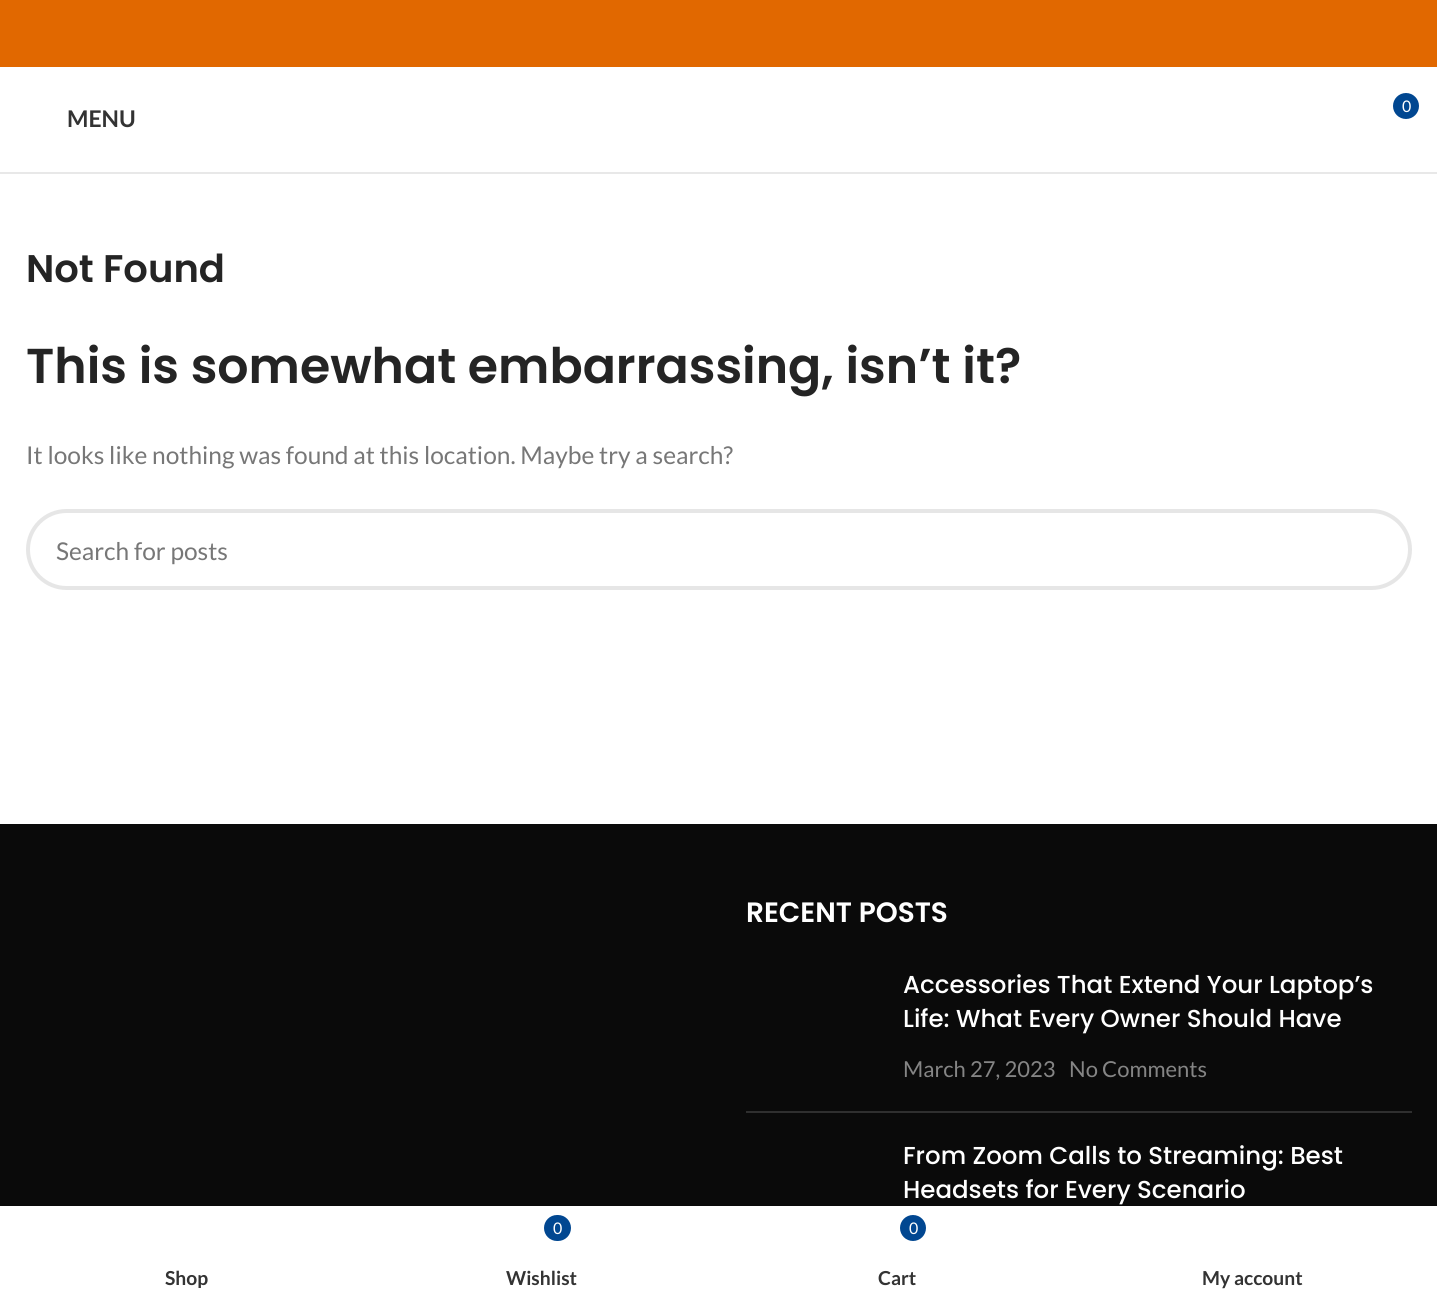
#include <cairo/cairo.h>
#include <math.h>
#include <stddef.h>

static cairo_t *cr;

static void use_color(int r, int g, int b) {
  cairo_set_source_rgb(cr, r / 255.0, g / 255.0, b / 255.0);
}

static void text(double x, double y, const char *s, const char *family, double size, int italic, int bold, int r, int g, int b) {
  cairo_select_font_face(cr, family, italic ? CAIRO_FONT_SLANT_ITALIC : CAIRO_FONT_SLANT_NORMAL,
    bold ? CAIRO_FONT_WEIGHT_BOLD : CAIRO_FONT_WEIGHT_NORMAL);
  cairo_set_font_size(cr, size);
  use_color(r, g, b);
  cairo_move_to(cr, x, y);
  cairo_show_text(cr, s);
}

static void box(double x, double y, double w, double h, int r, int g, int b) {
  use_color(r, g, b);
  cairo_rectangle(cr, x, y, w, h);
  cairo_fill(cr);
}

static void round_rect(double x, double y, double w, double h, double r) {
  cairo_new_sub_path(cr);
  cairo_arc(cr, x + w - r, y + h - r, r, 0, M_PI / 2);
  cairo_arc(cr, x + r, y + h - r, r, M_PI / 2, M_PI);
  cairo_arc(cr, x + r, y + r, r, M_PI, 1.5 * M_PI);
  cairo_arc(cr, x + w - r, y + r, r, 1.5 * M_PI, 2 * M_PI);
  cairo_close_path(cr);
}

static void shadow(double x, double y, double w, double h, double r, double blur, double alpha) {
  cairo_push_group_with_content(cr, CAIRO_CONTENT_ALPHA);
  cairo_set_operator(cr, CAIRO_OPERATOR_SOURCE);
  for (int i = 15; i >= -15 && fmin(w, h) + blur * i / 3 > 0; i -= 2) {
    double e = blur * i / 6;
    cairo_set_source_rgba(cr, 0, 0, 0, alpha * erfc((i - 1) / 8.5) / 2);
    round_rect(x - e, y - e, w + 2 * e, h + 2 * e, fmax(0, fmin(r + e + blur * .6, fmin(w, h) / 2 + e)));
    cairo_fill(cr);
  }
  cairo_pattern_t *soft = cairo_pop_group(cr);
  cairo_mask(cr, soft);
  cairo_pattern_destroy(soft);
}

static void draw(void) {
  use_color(255, 255, 255);
  cairo_paint(cr);
  box(0, 0, 1437, 67, 225, 104, 0);
  box(0, 172, 1437, 2, 232, 232, 232);
  use_color(1, 71, 145);
  cairo_arc(cr, 1406, 106, 13, 0, 2 * M_PI);
  cairo_fill(cr);
  round_rect(28, 511, 1382, 77, 38.5);
  use_color(230, 230, 230);
  cairo_set_line_width(cr, 4);
  cairo_stroke(cr);
  box(0, 824, 1437, 382, 10, 10, 10);
  box(746, 1111, 666, 2, 47, 47, 47);
  use_color(0, 0, 0);
  shadow(0, 1206, 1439, 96, 0, 8, 0.12);
  box(0, 1206, 1437, 95, 255, 255, 255);
  use_color(1, 71, 145);
  round_rect(544, 1215, 27, 26, 13);
  cairo_fill(cr);
  cairo_arc(cr, 913, 1228, 13, 0, 2 * M_PI);
  cairo_fill(cr);
  text(1402, 112, "0", "Lato", 16, 0, 0, 255, 255, 255);
  text(67, 127, "MENU", "Lato", 23, 0, 1, 51, 51, 51);
  text(26, 282, "Not Found", "Poppins SemiBold", 38.5, 0, 0, 36, 36, 36);
  text(26, 383, "This is somewhat embarrassing, isn’t it?", "Poppins SemiBold", 49, 0, 0, 36, 36, 36);
  text(26, 464, "It looks like nothing was found at this location. Maybe try a search?", "Lato", 24.5, 0, 0, 119, 119, 119);
  text(56, 560, "Search for posts", "Lato", 24.5, 0, 0, 119, 119, 119);
  text(746, 922, "RECENT POSTS", "Poppins SemiBold", 28, 0, 0, 255, 255, 255);
  text(903, 993, "Accessories That Extend Your Laptop’s", "Poppins Medium", 24.5, 0, 0, 255, 255, 255);
  text(903, 1027, "Life: What Every Owner Should Have", "Poppins Medium", 24.5, 0, 0, 255, 255, 255);
  text(903, 1077, "March 27, 2023", "Lato", 22, 0, 0, 133, 133, 133);
  text(1069, 1077, "No Comments", "Lato", 22, 0, 0, 133, 133, 133);
  text(903, 1164, "From Zoom Calls to Streaming: Best", "Poppins Medium", 24.5, 0, 0, 255, 255, 255);
  text(903, 1198, "Headsets for Every Scenario", "Poppins Medium", 24.5, 0, 0, 255, 255, 255);
  cairo_save(cr);
  cairo_rectangle(cr, 26, 1265, 321, 23);
  cairo_clip(cr);
  text(165, 1285, "Shop", "Lato", 19.25, 0, 1, 51, 51, 51);
  cairo_restore(cr);
  text(553, 1234, "0", "Lato", 16, 0, 0, 255, 255, 255);
  text(506, 1285, "Wishlist", "Lato", 19.25, 0, 1, 51, 51, 51);
  text(909, 1234, "0", "Lato", 16, 0, 0, 255, 255, 255);
  text(878, 1285, "Cart", "Lato", 19.25, 0, 1, 51, 51, 51);
  text(1202, 1285, "My account", "Lato", 19.25, 0, 1, 51, 51, 51);
}

int main(void) {
  cairo_surface_t *surface = cairo_image_surface_create(CAIRO_FORMAT_RGB24, 1437, 1301);
  cr = cairo_create(surface);
  cairo_font_options_t *options = cairo_font_options_create();
  cairo_font_options_set_hint_metrics(options, CAIRO_HINT_METRICS_OFF);
  cairo_font_options_set_hint_style(options, CAIRO_HINT_STYLE_NONE);
  cairo_set_font_options(cr, options);
  cairo_set_miter_limit(cr, 4);
  draw();
  cairo_surface_write_to_png(surface, "out.png");
  cairo_font_options_destroy(options);
  cairo_destroy(cr);
  cairo_surface_destroy(surface);
  return 0;
}
